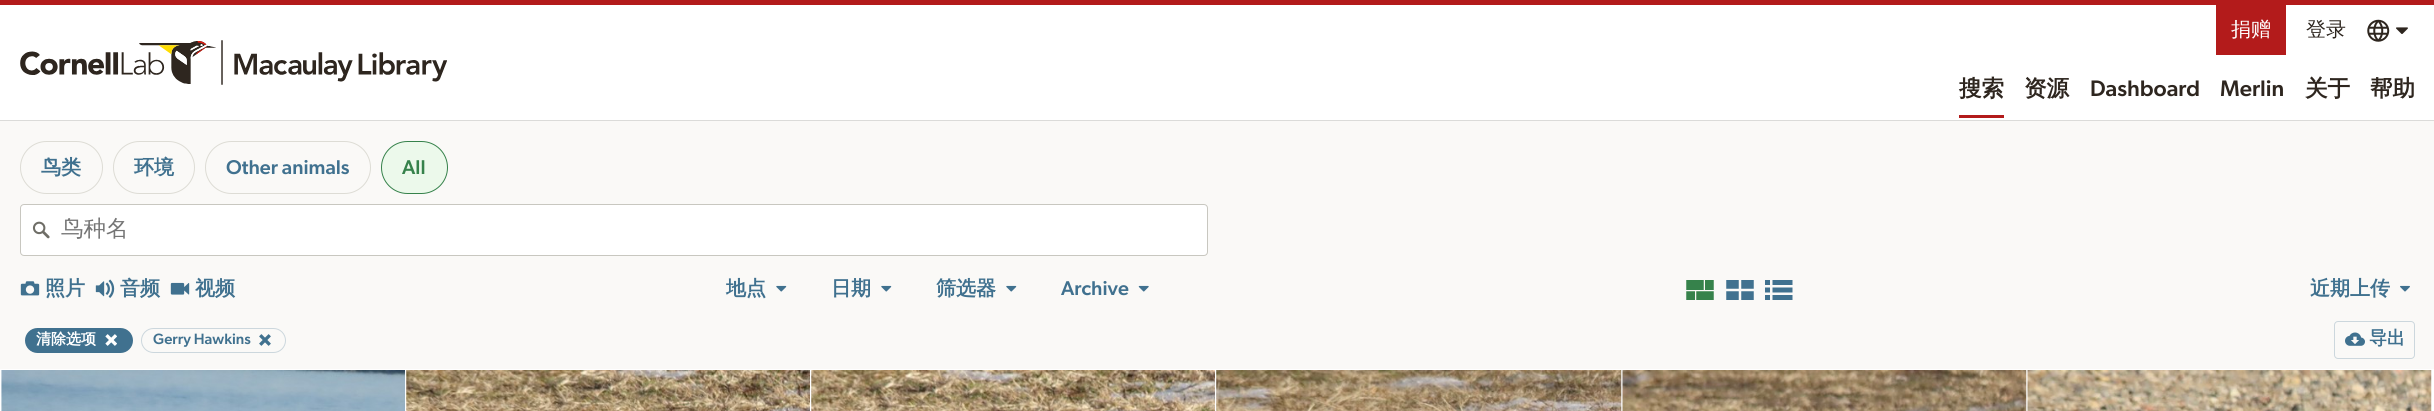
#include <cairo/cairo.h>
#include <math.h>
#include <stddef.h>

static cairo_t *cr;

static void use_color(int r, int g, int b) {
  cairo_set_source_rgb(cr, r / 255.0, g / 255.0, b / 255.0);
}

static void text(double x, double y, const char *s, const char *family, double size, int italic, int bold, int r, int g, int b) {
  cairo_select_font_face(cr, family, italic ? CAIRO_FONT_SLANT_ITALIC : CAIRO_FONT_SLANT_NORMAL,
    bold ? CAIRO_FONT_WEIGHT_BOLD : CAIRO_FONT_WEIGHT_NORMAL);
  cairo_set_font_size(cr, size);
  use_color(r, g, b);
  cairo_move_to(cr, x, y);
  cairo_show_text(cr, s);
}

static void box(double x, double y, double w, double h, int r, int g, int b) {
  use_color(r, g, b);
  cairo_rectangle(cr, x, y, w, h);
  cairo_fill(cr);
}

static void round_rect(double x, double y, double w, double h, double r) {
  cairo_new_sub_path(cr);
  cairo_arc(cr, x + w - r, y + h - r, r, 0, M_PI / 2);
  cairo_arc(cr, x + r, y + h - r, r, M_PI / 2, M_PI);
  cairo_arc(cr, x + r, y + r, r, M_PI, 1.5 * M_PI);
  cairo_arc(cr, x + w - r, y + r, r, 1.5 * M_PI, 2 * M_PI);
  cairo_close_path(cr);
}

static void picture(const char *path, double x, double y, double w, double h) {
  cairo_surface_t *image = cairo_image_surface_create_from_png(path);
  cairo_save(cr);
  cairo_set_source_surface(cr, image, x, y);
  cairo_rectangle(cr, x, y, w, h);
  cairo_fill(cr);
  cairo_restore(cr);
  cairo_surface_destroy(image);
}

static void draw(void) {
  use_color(255, 255, 255);
  cairo_paint(cr);
  box(0, 0, 2434, 5, 179, 27, 27);
  box(0, 120, 2434, 1, 219, 219, 217);
  picture("img_01.png", 20, 40, 427, 45);
  box(2216, 5, 70, 50, 179, 27, 27);
  picture("img_02.png", 2367, 19, 23, 23);
  picture("img_03.png", 2396, 27, 12, 7);
  box(1959, 115, 45, 3, 179, 27, 27);
  box(0, 121, 2434, 248, 250, 249, 247);
  round_rect(20.5, 141.5, 82, 52, 26);
  use_color(221, 220, 213);
  cairo_set_line_width(cr, 1);
  cairo_stroke(cr);
  round_rect(113.5, 141.5, 81, 52, 26);
  cairo_stroke(cr);
  round_rect(205.5, 141.5, 165, 52, 26);
  cairo_stroke(cr);
  use_color(236, 249, 235);
  round_rect(381.5, 141.5, 66, 52, 26);
  cairo_fill_preserve(cr);
  use_color(54, 130, 75);
  cairo_stroke(cr);
  use_color(255, 255, 255);
  round_rect(20.5, 204.5, 1187, 51, 3.5);
  cairo_fill_preserve(cr);
  use_color(200, 199, 192);
  cairo_stroke(cr);
  picture("img_04.png", 32, 221, 18, 18);
  picture("img_05.png", 20, 281, 20, 15);
  picture("img_06.png", 95, 279, 20, 19);
  picture("img_07.png", 170, 282, 20, 13);
  picture("img_08.png", 776, 285, 11, 7);
  picture("img_08.png", 881, 285, 11, 7);
  picture("img_08.png", 1006, 285, 11, 7);
  picture("img_09.png", 1138, 285, 11, 7);
  picture("img_10.png", 1686, 280, 28, 20);
  picture("img_11.png", 1726, 280, 28, 20);
  picture("img_12.png", 1765, 280, 28, 20);
  picture("img_13.png", 2400, 285, 10, 7);
  use_color(64, 113, 143);
  round_rect(25, 328, 108, 25, 12.5);
  cairo_fill(cr);
  picture("img_14.png", 105, 334, 12, 12);
  round_rect(141.5, 328.5, 144, 24, 12);
  use_color(204, 215, 221);
  cairo_stroke(cr);
  picture("img_15.png", 259, 334, 12, 12);
  round_rect(2334.5, 321.5, 80, 37, 3.5);
  cairo_stroke(cr);
  picture("img_16.png", 2345, 332, 20, 14);
  picture("img_17.png", 1, 370, 404, 41);
  picture("img_18.png", 406, 370, 404, 41);
  picture("img_19.png", 811, 370, 404, 41);
  picture("img_20.png", 1216, 370, 406, 41);
  picture("img_21.png", 1622, 370, 405, 41);
  picture("img_22.png", 2027, 370, 405, 41);
  text(2231, 36, "捐赠", "WenQuanYi Zen Hei Medium", 20, 0, 0, 255, 255, 255);
  text(2306, 36, "登录", "WenQuanYi Zen Hei Medium", 20, 0, 0, 46, 38, 31);
  text(1959, 96, "搜索", "WenQuanYi Zen Hei", 22.5, 0, 1, 46, 38, 31);
  text(2024, 96, "资源", "WenQuanYi Zen Hei", 22.5, 0, 1, 46, 38, 31);
  text(2090, 96, "Dashboard", "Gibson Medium", 22.5, 0, 0, 46, 38, 31);
  text(2220, 96, "Merlin", "Gibson Medium", 22.5, 0, 0, 46, 38, 31);
  text(2305, 96, "关于", "WenQuanYi Zen Hei", 22.5, 0, 1, 46, 38, 31);
  text(2370, 96, "帮助", "WenQuanYi Zen Hei", 22.5, 0, 1, 46, 38, 31);
  text(41, 174, "鸟类", "WenQuanYi Zen Hei", 20, 0, 1, 64, 113, 143);
  text(134, 174, "环境", "WenQuanYi Zen Hei", 20, 0, 1, 64, 113, 143);
  text(226, 174, "Other animals", "Gibson Medium", 20, 0, 0, 64, 113, 143);
  text(402, 174, "All", "Gibson Medium", 20, 0, 0, 54, 130, 75);
  text(61, 236, "鸟种名", "WenQuanYi Zen Hei Medium", 22.5, 0, 0, 117, 117, 117);
  text(45, 295, "照片", "WenQuanYi Zen Hei", 20, 0, 1, 64, 113, 143);
  text(120, 295, "音频", "WenQuanYi Zen Hei", 20, 0, 1, 64, 113, 143);
  text(195, 295, "视频", "WenQuanYi Zen Hei", 20, 0, 1, 64, 113, 143);
  text(726, 295, "地点", "WenQuanYi Zen Hei", 20, 0, 1, 64, 113, 143);
  text(831, 295, "日期", "WenQuanYi Zen Hei", 20, 0, 1, 64, 113, 143);
  text(936, 295, "筛选器", "WenQuanYi Zen Hei", 20, 0, 1, 64, 113, 143);
  text(1061, 295, "Archive", "Gibson Medium", 20, 0, 0, 64, 113, 143);
  text(2310, 295, "近期上传", "WenQuanYi Zen Hei", 20, 0, 1, 64, 113, 143);
  text(36, 344, "清除选项", "WenQuanYi Zen Hei", 15, 0, 1, 255, 255, 255);
  text(153, 344, "Gerry Hawkins", "Gibson Medium", 15, 0, 0, 64, 113, 143);
  text(2369, 344, "导出", "WenQuanYi Zen Hei", 18, 0, 1, 64, 113, 143);
}

int main(void) {
  cairo_surface_t *surface = cairo_image_surface_create(CAIRO_FORMAT_RGB24, 2434, 411);
  cr = cairo_create(surface);
  cairo_font_options_t *options = cairo_font_options_create();
  cairo_font_options_set_hint_metrics(options, CAIRO_HINT_METRICS_OFF);
  cairo_font_options_set_hint_style(options, CAIRO_HINT_STYLE_NONE);
  cairo_set_font_options(cr, options);
  cairo_set_miter_limit(cr, 4);
  draw();
  cairo_surface_write_to_png(surface, "out.png");
  cairo_font_options_destroy(options);
  cairo_destroy(cr);
  cairo_surface_destroy(surface);
  return 0;
}
